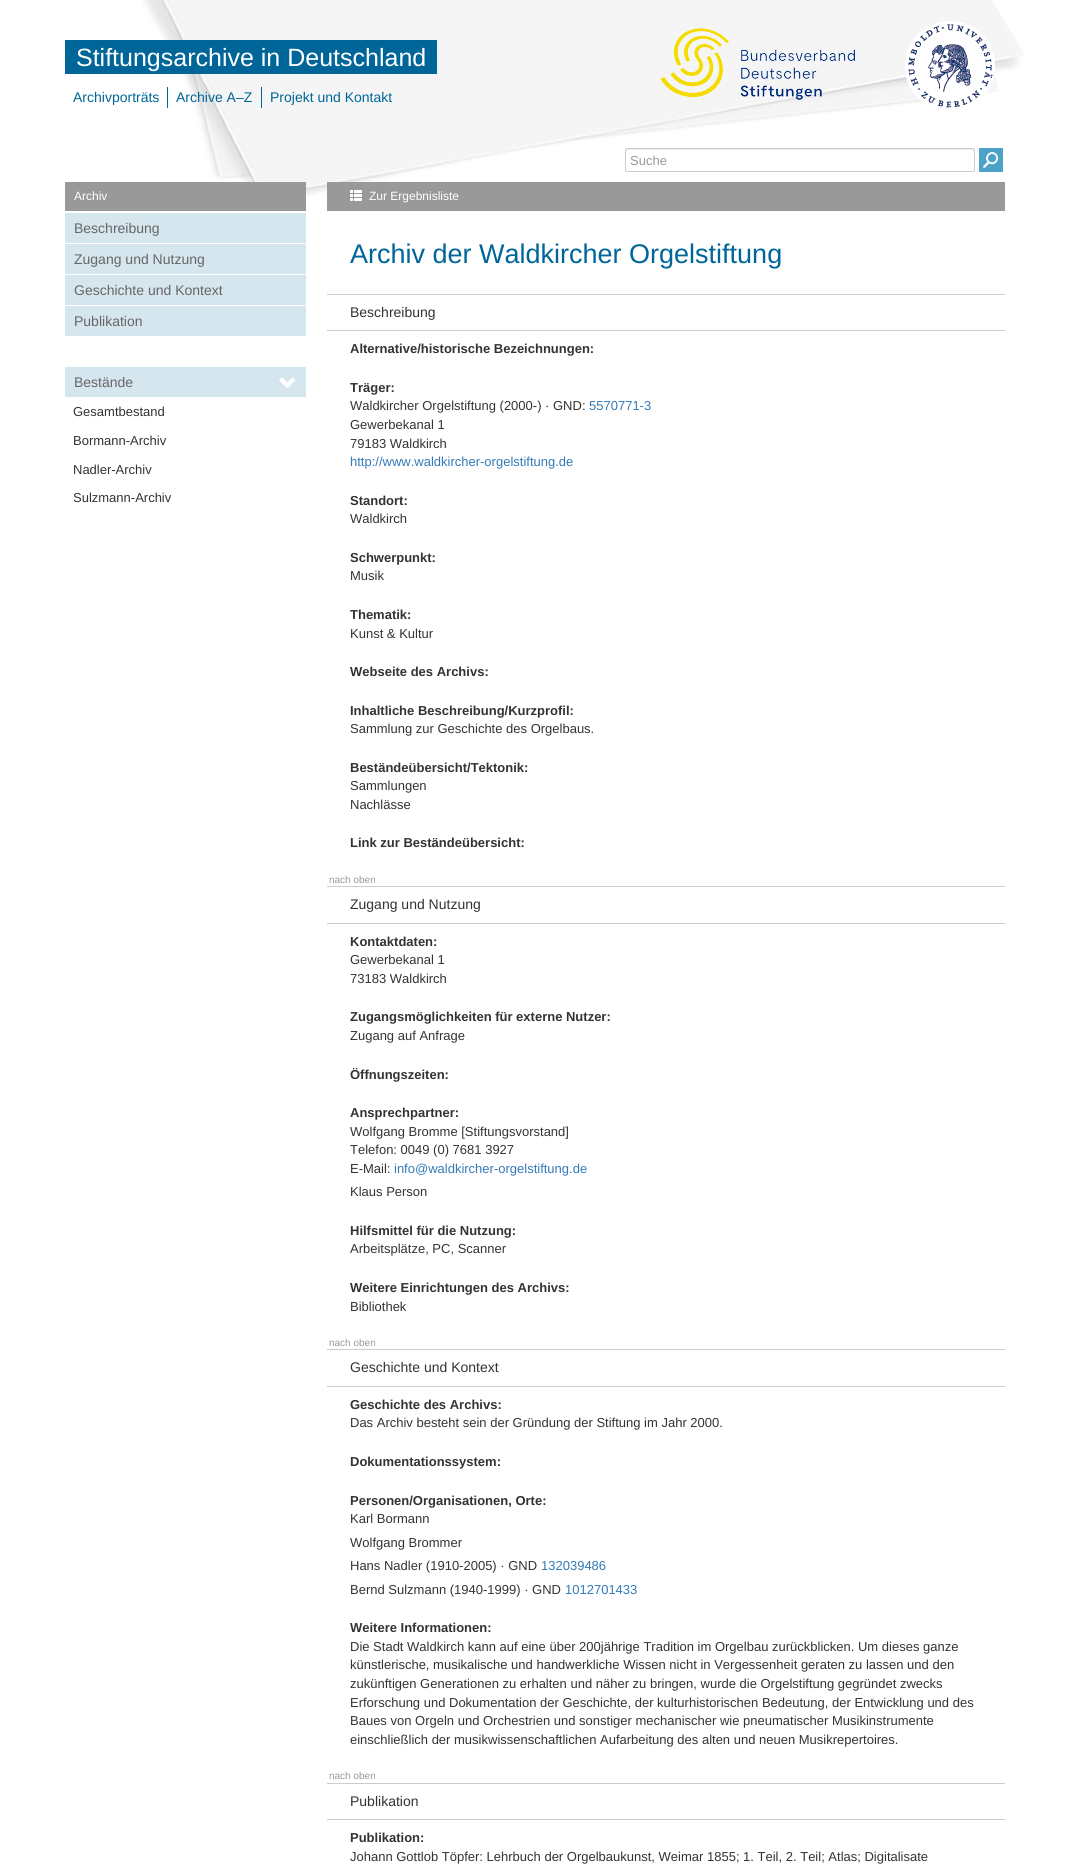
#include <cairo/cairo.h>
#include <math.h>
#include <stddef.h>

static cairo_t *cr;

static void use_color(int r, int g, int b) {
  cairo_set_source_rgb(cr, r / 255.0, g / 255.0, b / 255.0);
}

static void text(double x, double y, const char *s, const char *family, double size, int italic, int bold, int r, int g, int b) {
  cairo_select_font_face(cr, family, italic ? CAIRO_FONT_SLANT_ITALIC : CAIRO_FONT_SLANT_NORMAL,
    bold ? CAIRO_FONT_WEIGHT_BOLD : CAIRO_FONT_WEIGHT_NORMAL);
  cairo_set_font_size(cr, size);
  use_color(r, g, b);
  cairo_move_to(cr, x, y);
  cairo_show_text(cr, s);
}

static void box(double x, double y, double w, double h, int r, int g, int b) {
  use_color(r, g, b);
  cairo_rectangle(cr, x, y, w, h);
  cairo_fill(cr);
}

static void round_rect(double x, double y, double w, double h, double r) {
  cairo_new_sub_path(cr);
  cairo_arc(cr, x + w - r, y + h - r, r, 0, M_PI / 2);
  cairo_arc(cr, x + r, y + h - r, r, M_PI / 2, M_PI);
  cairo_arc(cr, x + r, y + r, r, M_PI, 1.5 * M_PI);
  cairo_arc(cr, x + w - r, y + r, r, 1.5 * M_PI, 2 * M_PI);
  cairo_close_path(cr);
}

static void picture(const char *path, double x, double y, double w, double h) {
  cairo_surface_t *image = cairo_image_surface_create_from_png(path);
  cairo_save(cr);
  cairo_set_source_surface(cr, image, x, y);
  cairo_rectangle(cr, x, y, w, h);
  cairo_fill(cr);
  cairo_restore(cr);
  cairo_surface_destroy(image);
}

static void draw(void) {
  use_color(255, 255, 255);
  cairo_paint(cr);
  picture("img_01.png", 142, 0, 883, 200);
  box(65, 40, 372, 34, 0, 101, 153);
  picture("img_02.png", 660, 28, 195, 72);
  picture("img_03.png", 905, 21, 90, 87);
  box(167, 87, 1, 21, 0, 101, 153);
  box(261, 87, 1, 21, 0, 101, 153);
  use_color(236, 236, 236);
  cairo_new_path(cr);
  cairo_move_to(cr, 627, 150);
  cairo_line_to(cr, 973, 150);
  cairo_line_to(cr, 974, 151);
  cairo_line_to(cr, 974, 150);
  cairo_line_to(cr, 973, 149);
  cairo_line_to(cr, 627, 149);
  cairo_curve_to(cr, 626, 149, 626, 151, 626, 151);
  cairo_close_path(cr);
  cairo_fill(cr);
  round_rect(625.5, 148.5, 349, 23, 1.5);
  use_color(204, 204, 204);
  cairo_set_line_width(cr, 1);
  cairo_stroke(cr);
  picture("img_04.png", 979, 148, 24, 24);
  box(65, 182, 241, 29, 153, 153, 153);
  box(65, 213, 241, 30, 213, 230, 238);
  box(65, 244, 241, 30, 213, 230, 238);
  box(65, 275, 241, 30, 213, 230, 238);
  box(65, 306, 241, 30, 213, 230, 238);
  box(65, 367, 241, 30, 213, 230, 238);
  picture("img_05.png", 279, 377, 17, 12);
  box(327, 182, 678, 29, 153, 153, 153);
  picture("img_06.png", 350, 190, 12, 11);
  box(327, 294, 678, 1, 204, 204, 204);
  box(327, 330, 678, 1, 204, 204, 204);
  box(327, 886, 678, 1, 204, 204, 204);
  box(327, 923, 678, 1, 204, 204, 204);
  box(327, 1349, 678, 1, 204, 204, 204);
  box(327, 1386, 678, 1, 204, 204, 204);
  box(327, 1783, 678, 1, 204, 204, 204);
  box(327, 1819, 678, 1, 204, 204, 204);
  text(76, 66, "Stiftungsarchive in Deutschland", "Liberation Sans", 25, 0, 0, 255, 255, 255);
  text(73, 102, "Archivporträts", "Liberation Sans", 14, 0, 0, 0, 101, 153);
  text(176, 102, "Archive A–Z", "Liberation Sans", 14, 0, 0, 0, 101, 153);
  text(270, 102, "Projekt und Kontakt", "Liberation Sans", 14, 0, 0, 0, 101, 153);
  text(630, 165, "Suche", "Liberation Sans", 13, 0, 0, 153, 153, 153);
  text(74, 200, "Archiv", "Liberation Sans", 12, 0, 0, 255, 255, 255);
  text(74, 233, "Beschreibung", "Liberation Sans", 14, 0, 0, 102, 102, 102);
  text(74, 264, "Zugang und Nutzung", "Liberation Sans", 14, 0, 0, 102, 102, 102);
  text(74, 295, "Geschichte und Kontext", "Liberation Sans", 14, 0, 0, 102, 102, 102);
  text(74, 326, "Publikation", "Liberation Sans", 14, 0, 0, 102, 102, 102);
  text(74, 387, "Bestände", "Liberation Sans", 14, 0, 0, 102, 102, 102);
  text(73, 416, "Gesamtbestand", "Liberation Sans", 13, 0, 0, 51, 51, 51);
  text(73, 445, "Bormann-Archiv", "Liberation Sans", 13, 0, 0, 51, 51, 51);
  text(73, 474, "Nadler-Archiv", "Liberation Sans", 13, 0, 0, 51, 51, 51);
  text(73, 502, "Sulzmann-Archiv", "Liberation Sans", 13, 0, 0, 51, 51, 51);
  text(369, 200, "Zur Ergebnisliste", "Liberation Sans", 12, 0, 0, 255, 255, 255);
  text(350, 263, "Archiv der Waldkircher Orgelstiftung", "Liberation Sans", 27, 0, 0, 0, 101, 153);
  text(350, 317, "Beschreibung", "Liberation Sans", 14, 0, 0, 51, 51, 51);
  text(350, 353, "Alternative/historische Bezeichnungen:", "Liberation Sans", 13, 0, 1, 51, 51, 51);
  text(350, 392, "Träger:", "Liberation Sans", 13, 0, 1, 51, 51, 51);
  text(350, 410, "Waldkircher Orgelstiftung (2000-) · GND:", "Liberation Sans", 13, 0, 0, 51, 51, 51);
  text(589, 410, "5570771-3", "Liberation Sans", 13, 0, 0, 51, 122, 183);
  text(350, 429, "Gewerbekanal 1", "Liberation Sans", 13, 0, 0, 51, 51, 51);
  text(350, 448, "79183 Waldkirch", "Liberation Sans", 13, 0, 0, 51, 51, 51);
  text(350, 466, "http://www.waldkircher-orgelstiftung.de", "Liberation Sans", 13, 0, 0, 51, 122, 183);
  text(350, 505, "Standort:", "Liberation Sans", 13, 0, 1, 51, 51, 51);
  text(350, 523, "Waldkirch", "Liberation Sans", 13, 0, 0, 51, 51, 51);
  text(350, 562, "Schwerpunkt:", "Liberation Sans", 13, 0, 1, 51, 51, 51);
  text(350, 580, "Musik", "Liberation Sans", 13, 0, 0, 51, 51, 51);
  text(350, 619, "Thematik:", "Liberation Sans", 13, 0, 1, 51, 51, 51);
  text(350, 638, "Kunst & Kultur", "Liberation Sans", 13, 0, 0, 51, 51, 51);
  text(350, 676, "Webseite des Archivs:", "Liberation Sans", 13, 0, 1, 51, 51, 51);
  text(350, 715, "Inhaltliche Beschreibung/Kurzprofil:", "Liberation Sans", 13, 0, 1, 51, 51, 51);
  text(350, 733, "Sammlung zur Geschichte des Orgelbaus.", "Liberation Sans", 13, 0, 0, 51, 51, 51);
  text(350, 772, "Beständeübersicht/Tektonik:", "Liberation Sans", 13, 0, 1, 51, 51, 51);
  text(350, 790, "Sammlungen", "Liberation Sans", 13, 0, 0, 51, 51, 51);
  text(350, 809, "Nachlässe", "Liberation Sans", 13, 0, 0, 51, 51, 51);
  text(350, 847, "Link zur Beständeübersicht:", "Liberation Sans", 13, 0, 1, 51, 51, 51);
  text(329, 883, "nach oben", "Liberation Sans", 10, 0, 0, 153, 153, 153);
  text(350, 909, "Zugang und Nutzung", "Liberation Sans", 14, 0, 0, 51, 51, 51);
  text(350, 946, "Kontaktdaten:", "Liberation Sans", 13, 0, 1, 51, 51, 51);
  text(350, 964, "Gewerbekanal 1", "Liberation Sans", 13, 0, 0, 51, 51, 51);
  text(350, 983, "73183 Waldkirch", "Liberation Sans", 13, 0, 0, 51, 51, 51);
  text(350, 1021, "Zugangsmöglichkeiten für externe Nutzer:", "Liberation Sans", 13, 0, 1, 51, 51, 51);
  text(350, 1040, "Zugang auf Anfrage", "Liberation Sans", 13, 0, 0, 51, 51, 51);
  text(350, 1079, "Öffnungszeiten:", "Liberation Sans", 13, 0, 1, 51, 51, 51);
  text(350, 1117, "Ansprechpartner:", "Liberation Sans", 13, 0, 1, 51, 51, 51);
  text(350, 1136, "Wolfgang Bromme [Stiftungsvorstand]", "Liberation Sans", 13, 0, 0, 51, 51, 51);
  text(350, 1154, "Telefon: 0049 (0) 7681 3927", "Liberation Sans", 13, 0, 0, 51, 51, 51);
  text(350, 1173, "E-Mail:", "Liberation Sans", 13, 0, 0, 51, 51, 51);
  text(394, 1173, "info@waldkircher-orgelstiftung.de", "Liberation Sans", 13, 0, 0, 51, 122, 183);
  text(350, 1196, "Klaus Person", "Liberation Sans", 13, 0, 0, 51, 51, 51);
  text(350, 1235, "Hilfsmittel für die Nutzung:", "Liberation Sans", 13, 0, 1, 51, 51, 51);
  text(350, 1253, "Arbeitsplätze, PC, Scanner", "Liberation Sans", 13, 0, 0, 51, 51, 51);
  text(350, 1292, "Weitere Einrichtungen des Archivs:", "Liberation Sans", 13, 0, 1, 51, 51, 51);
  text(350, 1311, "Bibliothek", "Liberation Sans", 13, 0, 0, 51, 51, 51);
  text(329, 1346, "nach oben", "Liberation Sans", 10, 0, 0, 153, 153, 153);
  text(350, 1372, "Geschichte und Kontext", "Liberation Sans", 14, 0, 0, 51, 51, 51);
  text(350, 1409, "Geschichte des Archivs:", "Liberation Sans", 13, 0, 1, 51, 51, 51);
  text(350, 1427, "Das Archiv besteht sein der Gründung der Stiftung im Jahr 2000.", "Liberation Sans", 13, 0, 0, 51, 51, 51);
  text(350, 1466, "Dokumentationssystem:", "Liberation Sans", 13, 0, 1, 51, 51, 51);
  text(350, 1505, "Personen/Organisationen, Orte:", "Liberation Sans", 13, 0, 1, 51, 51, 51);
  text(350, 1523, "Karl Bormann", "Liberation Sans", 13, 0, 0, 51, 51, 51);
  text(350, 1547, "Wolfgang Brommer", "Liberation Sans", 13, 0, 0, 51, 51, 51);
  text(350, 1570, "Hans Nadler (1910-2005) · GND", "Liberation Sans", 13, 0, 0, 51, 51, 51);
  text(541, 1570, "132039486", "Liberation Sans", 13, 0, 0, 51, 122, 183);
  text(350, 1594, "Bernd Sulzmann (1940-1999) · GND", "Liberation Sans", 13, 0, 0, 51, 51, 51);
  text(565, 1594, "1012701433", "Liberation Sans", 13, 0, 0, 51, 122, 183);
  text(350, 1632, "Weitere Informationen:", "Liberation Sans", 13, 0, 1, 51, 51, 51);
  text(350, 1651, "Die Stadt Waldkirch kann auf eine über 200jährige Tradition im Orgelbau zurückblicken. Um dieses ganze", "Liberation Sans", 13, 0, 0, 51, 51, 51);
  text(350, 1669, "künstlerische, musikalische und handwerkliche Wissen nicht in Vergessenheit geraten zu lassen und den", "Liberation Sans", 13, 0, 0, 51, 51, 51);
  text(350, 1688, "zukünftigen Generationen zu erhalten und näher zu bringen, wurde die Orgelstiftung gegründet zwecks", "Liberation Sans", 13, 0, 0, 51, 51, 51);
  text(350, 1707, "Erforschung und Dokumentation der Geschichte, der kulturhistorischen Bedeutung, der Entwicklung und des", "Liberation Sans", 13, 0, 0, 51, 51, 51);
  text(350, 1725, "Baues von Orgeln und Orchestrien und sonstiger mechanischer wie pneumatischer Musikinstrumente", "Liberation Sans", 13, 0, 0, 51, 51, 51);
  text(350, 1744, "einschließlich der musikwissenschaftlichen Aufarbeitung des alten und neuen Musikrepertoires.", "Liberation Sans", 13, 0, 0, 51, 51, 51);
  text(329, 1779, "nach oben", "Liberation Sans", 10, 0, 0, 153, 153, 153);
  text(350, 1806, "Publikation", "Liberation Sans", 14, 0, 0, 51, 51, 51);
  text(350, 1842, "Publikation:", "Liberation Sans", 13, 0, 1, 51, 51, 51);
  text(350, 1861, "Johann Gottlob Töpfer: Lehrbuch der Orgelbaukunst, Weimar 1855; 1. Teil, 2. Teil; Atlas; Digitalisate", "Liberation Sans", 13, 0, 0, 51, 51, 51);
}

int main(void) {
  cairo_surface_t *surface = cairo_image_surface_create(CAIRO_FORMAT_RGB24, 1068, 1872);
  cr = cairo_create(surface);
  cairo_font_options_t *options = cairo_font_options_create();
  cairo_font_options_set_hint_metrics(options, CAIRO_HINT_METRICS_OFF);
  cairo_font_options_set_hint_style(options, CAIRO_HINT_STYLE_NONE);
  cairo_set_font_options(cr, options);
  cairo_set_miter_limit(cr, 4);
  draw();
  cairo_surface_write_to_png(surface, "out.png");
  cairo_font_options_destroy(options);
  cairo_destroy(cr);
  cairo_surface_destroy(surface);
  return 0;
}
